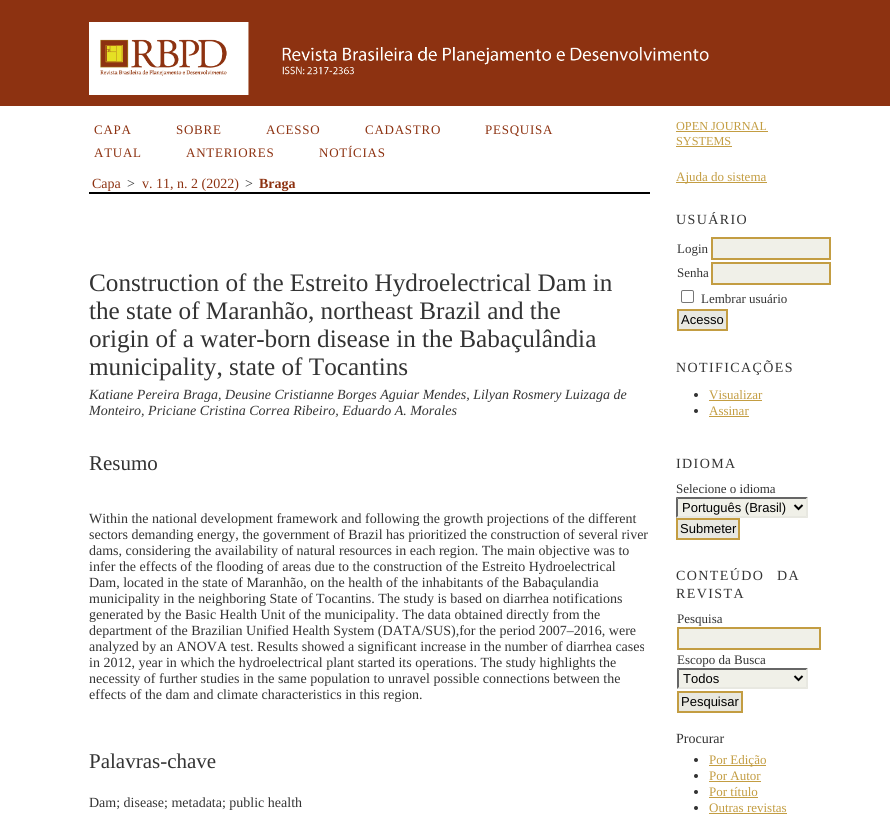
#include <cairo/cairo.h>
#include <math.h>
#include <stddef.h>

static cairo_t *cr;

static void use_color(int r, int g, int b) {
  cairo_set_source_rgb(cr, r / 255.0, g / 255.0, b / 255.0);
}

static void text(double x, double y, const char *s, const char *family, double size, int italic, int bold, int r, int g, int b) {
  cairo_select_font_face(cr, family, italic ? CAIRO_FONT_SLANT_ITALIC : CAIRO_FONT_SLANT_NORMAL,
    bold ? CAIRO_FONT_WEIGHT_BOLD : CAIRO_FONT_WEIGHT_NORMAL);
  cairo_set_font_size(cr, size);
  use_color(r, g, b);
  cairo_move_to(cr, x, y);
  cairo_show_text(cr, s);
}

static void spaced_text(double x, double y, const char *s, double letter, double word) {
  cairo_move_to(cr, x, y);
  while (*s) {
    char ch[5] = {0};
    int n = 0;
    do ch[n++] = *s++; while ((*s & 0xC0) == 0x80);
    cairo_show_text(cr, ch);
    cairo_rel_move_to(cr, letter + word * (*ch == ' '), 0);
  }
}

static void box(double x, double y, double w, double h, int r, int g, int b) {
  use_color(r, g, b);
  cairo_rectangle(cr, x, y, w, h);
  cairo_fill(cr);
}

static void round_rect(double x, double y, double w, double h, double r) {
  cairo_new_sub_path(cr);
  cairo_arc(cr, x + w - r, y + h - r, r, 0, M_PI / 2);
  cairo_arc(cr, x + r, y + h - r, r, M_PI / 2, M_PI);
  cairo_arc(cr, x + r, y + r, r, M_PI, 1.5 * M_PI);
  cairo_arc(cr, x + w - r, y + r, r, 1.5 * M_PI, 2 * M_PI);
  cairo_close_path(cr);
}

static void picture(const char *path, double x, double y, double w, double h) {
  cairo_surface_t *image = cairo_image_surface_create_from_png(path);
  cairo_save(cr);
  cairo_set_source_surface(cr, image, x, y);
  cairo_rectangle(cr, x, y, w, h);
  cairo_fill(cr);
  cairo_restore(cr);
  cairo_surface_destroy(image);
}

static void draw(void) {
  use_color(255, 255, 255);
  cairo_paint(cr);
  box(0, 0, 890, 106, 141, 50, 17);
  picture("img_01.png", 89, 22, 620, 73);
  box(89, 192, 561, 2, 0, 0, 0);
  box(676, 131, 92, 1, 195, 157, 66);
  box(676, 146, 56, 1, 195, 157, 66);
  box(676, 182, 91, 1, 195, 157, 66);
  use_color(240, 240, 232);
  cairo_rectangle(cr, 712, 238, 118, 21);
  cairo_fill_preserve(cr);
  use_color(195, 157, 66);
  cairo_stroke(cr);
  use_color(240, 240, 232);
  cairo_rectangle(cr, 712, 263, 118, 21);
  cairo_fill_preserve(cr);
  use_color(195, 157, 66);
  cairo_stroke(cr);
  round_rect(681.5, 290.5, 12, 12, 1.5);
  use_color(118, 118, 118);
  cairo_set_line_width(cr, 1);
  cairo_stroke(cr);
  use_color(232, 232, 225);
  cairo_rectangle(cr, 678, 310, 49, 20);
  cairo_fill_preserve(cr);
  use_color(195, 157, 66);
  cairo_set_line_width(cr, 2);
  cairo_stroke(cr);
  use_color(51, 51, 51);
  cairo_arc(cr, 696, 395, 2, 0, 2 * M_PI);
  cairo_fill(cr);
  box(709, 400, 53, 1, 195, 157, 66);
  use_color(51, 51, 51);
  cairo_arc(cr, 696, 411, 2, 0, 2 * M_PI);
  cairo_fill(cr);
  box(709, 416, 40, 1, 195, 157, 66);
  box(676, 497, 132, 21, 240, 240, 232);
  use_color(102, 102, 102);
  cairo_new_path(cr);
  cairo_move_to(cr, 676, 497);
  cairo_line_to(cr, 808, 497);
  cairo_line_to(cr, 806, 499);
  cairo_line_to(cr, 678, 499);
  cairo_close_path(cr);
  cairo_fill(cr);
  use_color(232, 232, 225);
  cairo_new_path(cr);
  cairo_move_to(cr, 808, 497);
  cairo_line_to(cr, 808, 518);
  cairo_line_to(cr, 806, 516);
  cairo_line_to(cr, 806, 499);
  cairo_close_path(cr);
  cairo_fill(cr);
  cairo_new_path(cr);
  cairo_move_to(cr, 808, 518);
  cairo_line_to(cr, 676, 518);
  cairo_line_to(cr, 678, 516);
  cairo_line_to(cr, 806, 516);
  cairo_close_path(cr);
  cairo_fill(cr);
  use_color(102, 102, 102);
  cairo_new_path(cr);
  cairo_move_to(cr, 676, 518);
  cairo_line_to(cr, 676, 497);
  cairo_line_to(cr, 678, 499);
  cairo_line_to(cr, 678, 516);
  cairo_close_path(cr);
  cairo_fill(cr);
  cairo_new_path(cr);
  cairo_move_to(cr, 794.5, 505);
  cairo_line_to(cr, 798.5, 509);
  cairo_line_to(cr, 802.5, 505);
  use_color(0, 0, 0);
  cairo_stroke(cr);
  use_color(232, 232, 225);
  cairo_rectangle(cr, 677, 519, 62, 20);
  cairo_fill_preserve(cr);
  use_color(195, 157, 66);
  cairo_stroke(cr);
  use_color(240, 240, 232);
  cairo_rectangle(cr, 678, 628, 142, 21);
  cairo_fill_preserve(cr);
  use_color(195, 157, 66);
  cairo_stroke(cr);
  box(677, 668, 131, 21, 240, 240, 232);
  use_color(102, 102, 102);
  cairo_new_path(cr);
  cairo_move_to(cr, 677, 668);
  cairo_line_to(cr, 808, 668);
  cairo_line_to(cr, 806, 670);
  cairo_line_to(cr, 679, 670);
  cairo_close_path(cr);
  cairo_fill(cr);
  use_color(232, 232, 225);
  cairo_new_path(cr);
  cairo_move_to(cr, 808, 668);
  cairo_line_to(cr, 808, 689);
  cairo_line_to(cr, 806, 687);
  cairo_line_to(cr, 806, 670);
  cairo_close_path(cr);
  cairo_fill(cr);
  cairo_new_path(cr);
  cairo_move_to(cr, 808, 689);
  cairo_line_to(cr, 677, 689);
  cairo_line_to(cr, 679, 687);
  cairo_line_to(cr, 806, 687);
  cairo_close_path(cr);
  cairo_fill(cr);
  use_color(102, 102, 102);
  cairo_new_path(cr);
  cairo_move_to(cr, 677, 689);
  cairo_line_to(cr, 677, 668);
  cairo_line_to(cr, 679, 670);
  cairo_line_to(cr, 679, 687);
  cairo_close_path(cr);
  cairo_fill(cr);
  cairo_new_path(cr);
  cairo_move_to(cr, 794.5, 676);
  cairo_line_to(cr, 798.5, 680);
  cairo_line_to(cr, 802.5, 676);
  use_color(0, 0, 0);
  cairo_stroke(cr);
  use_color(232, 232, 225);
  cairo_rectangle(cr, 678, 692, 64, 20);
  cairo_fill_preserve(cr);
  use_color(195, 157, 66);
  cairo_stroke(cr);
  use_color(51, 51, 51);
  cairo_arc(cr, 696, 760, 2, 0, 2 * M_PI);
  cairo_fill(cr);
  box(709, 765, 57, 1, 195, 157, 66);
  use_color(51, 51, 51);
  cairo_arc(cr, 696, 776, 2, 0, 2 * M_PI);
  cairo_fill(cr);
  box(709, 781, 52, 1, 195, 157, 66);
  use_color(51, 51, 51);
  cairo_arc(cr, 696, 792, 2, 0, 2 * M_PI);
  cairo_fill(cr);
  box(709, 797, 49, 1, 195, 157, 66);
  use_color(51, 51, 51);
  cairo_arc(cr, 696, 808, 2, 0, 2 * M_PI);
  cairo_fill(cr);
  box(709, 813, 78, 1, 195, 157, 66);
  cairo_select_font_face(cr, "Liberation Serif", CAIRO_FONT_SLANT_NORMAL, CAIRO_FONT_WEIGHT_NORMAL);
  cairo_set_font_size(cr, 13);
  use_color(141, 50, 17);
  spaced_text(94, 134, "CAPA", 0.75, 0);
  spaced_text(176, 134, "SOBRE", 0.75, 0);
  spaced_text(266, 134, "ACESSO", 0.75, 0);
  spaced_text(365, 134, "CADASTRO", 0.75, 0);
  spaced_text(485, 134, "PESQUISA", 0.75, 0);
  spaced_text(94, 157, "ATUAL", 0.75, 0);
  spaced_text(186, 157, "ANTERIORES", 0.75, 0);
  spaced_text(319, 157, "NOTÍCIAS", 0.75, 0);
  text(92, 188, "Capa", "Liberation Serif", 14, 0, 0, 141, 50, 17);
  text(127, 188, ">", "Liberation Serif", 14, 0, 0, 51, 51, 51);
  text(142, 188, "v. 11, n. 2 (2022)", "Liberation Serif", 14, 0, 0, 141, 50, 17);
  text(245, 188, ">", "Liberation Serif", 14, 0, 0, 51, 51, 51);
  text(259, 188, "Braga", "Liberation Serif", 14, 0, 1, 141, 50, 17);
  text(89, 291, "Construction of the Estreito Hydroelectrical Dam in", "Liberation Serif", 25.2, 0, 0, 51, 51, 51);
  text(89, 319, "the state of Maranhão, northeast Brazil and the", "Liberation Serif", 25.2, 0, 0, 51, 51, 51);
  text(89, 347, "origin of a water-born disease in the Babaçulândia", "Liberation Serif", 25.2, 0, 0, 51, 51, 51);
  text(89, 375, "municipality, state of Tocantins", "Liberation Serif", 25.2, 0, 0, 51, 51, 51);
  text(89, 399, "Katiane Pereira Braga, Deusine Cristianne Borges Aguiar Mendes, Lilyan Rosmery Luizaga de", "Liberation Serif", 14, 1, 0, 51, 51, 51);
  text(89, 415, "Monteiro, Priciane Cristina Correa Ribeiro, Eduardo A. Morales", "Liberation Serif", 14, 1, 0, 51, 51, 51);
  text(89, 470, "Resumo", "Liberation Serif", 21, 0, 0, 51, 51, 51);
  text(89, 523, "Within the national development framework and following the growth projections of the different", "Liberation Serif", 14, 0, 0, 51, 51, 51);
  text(89, 539, "sectors demanding energy, the government of Brazil has prioritized the construction of several river", "Liberation Serif", 14, 0, 0, 51, 51, 51);
  text(89, 555, "dams, considering the availability of natural resources in each region. The main objective was to", "Liberation Serif", 14, 0, 0, 51, 51, 51);
  text(89, 571, "infer the effects of the flooding of areas due to the construction of the Estreito Hydroelectrical", "Liberation Serif", 14, 0, 0, 51, 51, 51);
  text(89, 587, "Dam, located in the state of Maranhão, on the health of the inhabitants of the Babaçulandia", "Liberation Serif", 14, 0, 0, 51, 51, 51);
  text(89, 603, "municipality in the neighboring State of Tocantins. The study is based on diarrhea notifications", "Liberation Serif", 14, 0, 0, 51, 51, 51);
  text(89, 619, "generated by the Basic Health Unit of the municipality. The data obtained directly from the", "Liberation Serif", 14, 0, 0, 51, 51, 51);
  text(89, 635, "department of the Brazilian Unified Health System (DATA/SUS),for the period 2007–2016, were", "Liberation Serif", 14, 0, 0, 51, 51, 51);
  text(89, 651, "analyzed by an ANOVA test. Results showed a significant increase in the number of diarrhea cases", "Liberation Serif", 14, 0, 0, 51, 51, 51);
  text(89, 667, "in 2012, year in which the hydroelectrical plant started its operations. The study highlights the", "Liberation Serif", 14, 0, 0, 51, 51, 51);
  text(89, 683, "necessity of further studies in the same population to unravel possible connections between the", "Liberation Serif", 14, 0, 0, 51, 51, 51);
  text(89, 699, "effects of the dam and climate characteristics in this region.", "Liberation Serif", 14, 0, 0, 51, 51, 51);
  text(89, 768, "Palavras-chave", "Liberation Serif", 21, 0, 0, 51, 51, 51);
  text(89, 807, "Dam; disease; metadata; public health", "Liberation Serif", 14, 0, 0, 51, 51, 51);
  text(676, 130, "OPEN JOURNAL", "Liberation Serif", 12.25, 0, 0, 195, 157, 66);
  text(676, 145, "SYSTEMS", "Liberation Serif", 12.25, 0, 0, 195, 157, 66);
  text(676, 181, "Ajuda do sistema", "Liberation Serif", 13, 0, 0, 195, 157, 66);
  cairo_set_font_size(cr, 14);
  use_color(51, 51, 51);
  spaced_text(676, 224, "USUÁRIO", 1.4, 0);
  text(677, 253, "Login", "Liberation Serif", 13, 0, 0, 51, 51, 51);
  text(677, 277, "Senha", "Liberation Serif", 13, 0, 0, 51, 51, 51);
  text(701, 303, "Lembrar usuário", "Liberation Serif", 13, 0, 0, 51, 51, 51);
  text(681, 324, "Acesso", "Liberation Sans", 13, 0, 0, 0, 0, 0);
  cairo_select_font_face(cr, "Liberation Serif", CAIRO_FONT_SLANT_NORMAL, CAIRO_FONT_WEIGHT_NORMAL);
  cairo_set_font_size(cr, 14);
  use_color(51, 51, 51);
  spaced_text(676, 372, "NOTIFICAÇÕES", 1.4, 0);
  text(709, 399, "Visualizar", "Liberation Serif", 13, 0, 0, 195, 157, 66);
  text(709, 415, "Assinar", "Liberation Serif", 13, 0, 0, 195, 157, 66);
  cairo_set_font_size(cr, 14);
  use_color(51, 51, 51);
  spaced_text(676, 468, "IDIOMA", 1.4, 0);
  text(676, 493, "Selecione o idioma", "Liberation Serif", 13, 0, 0, 51, 51, 51);
  text(682, 512, "Português (Brasil)", "Liberation Sans", 13, 0, 0, 0, 0, 0);
  text(680, 533, "Submeter", "Liberation Sans", 13, 0, 0, 0, 0, 0);
  cairo_select_font_face(cr, "Liberation Serif", CAIRO_FONT_SLANT_NORMAL, CAIRO_FONT_WEIGHT_NORMAL);
  cairo_set_font_size(cr, 14);
  use_color(51, 51, 51);
  spaced_text(676, 580, "CONTEÚDO DA", 1.4, 8);
  spaced_text(676, 598, "REVISTA", 1.4, 0);
  text(677, 623, "Pesquisa", "Liberation Serif", 13, 0, 0, 51, 51, 51);
  text(677, 664, "Escopo da Busca", "Liberation Serif", 13, 0, 0, 51, 51, 51);
  text(683, 683, "Todos", "Liberation Sans", 13, 0, 0, 0, 0, 0);
  text(681, 706, "Pesquisar", "Liberation Sans", 13, 0, 0, 0, 0, 0);
  text(676, 743, "Procurar", "Liberation Serif", 14, 0, 0, 51, 51, 51);
  text(709, 764, "Por Edição", "Liberation Serif", 13, 0, 0, 195, 157, 66);
  text(709, 780, "Por Autor", "Liberation Serif", 13, 0, 0, 195, 157, 66);
  text(709, 796, "Por título", "Liberation Serif", 13, 0, 0, 195, 157, 66);
  text(709, 812, "Outras revistas", "Liberation Serif", 13, 0, 0, 195, 157, 66);
}

int main(void) {
  cairo_surface_t *surface = cairo_image_surface_create(CAIRO_FORMAT_RGB24, 890, 817);
  cr = cairo_create(surface);
  cairo_font_options_t *options = cairo_font_options_create();
  cairo_font_options_set_hint_metrics(options, CAIRO_HINT_METRICS_OFF);
  cairo_font_options_set_hint_style(options, CAIRO_HINT_STYLE_NONE);
  cairo_set_font_options(cr, options);
  cairo_set_miter_limit(cr, 4);
  draw();
  cairo_surface_write_to_png(surface, "out.png");
  cairo_font_options_destroy(options);
  cairo_destroy(cr);
  cairo_surface_destroy(surface);
  return 0;
}
